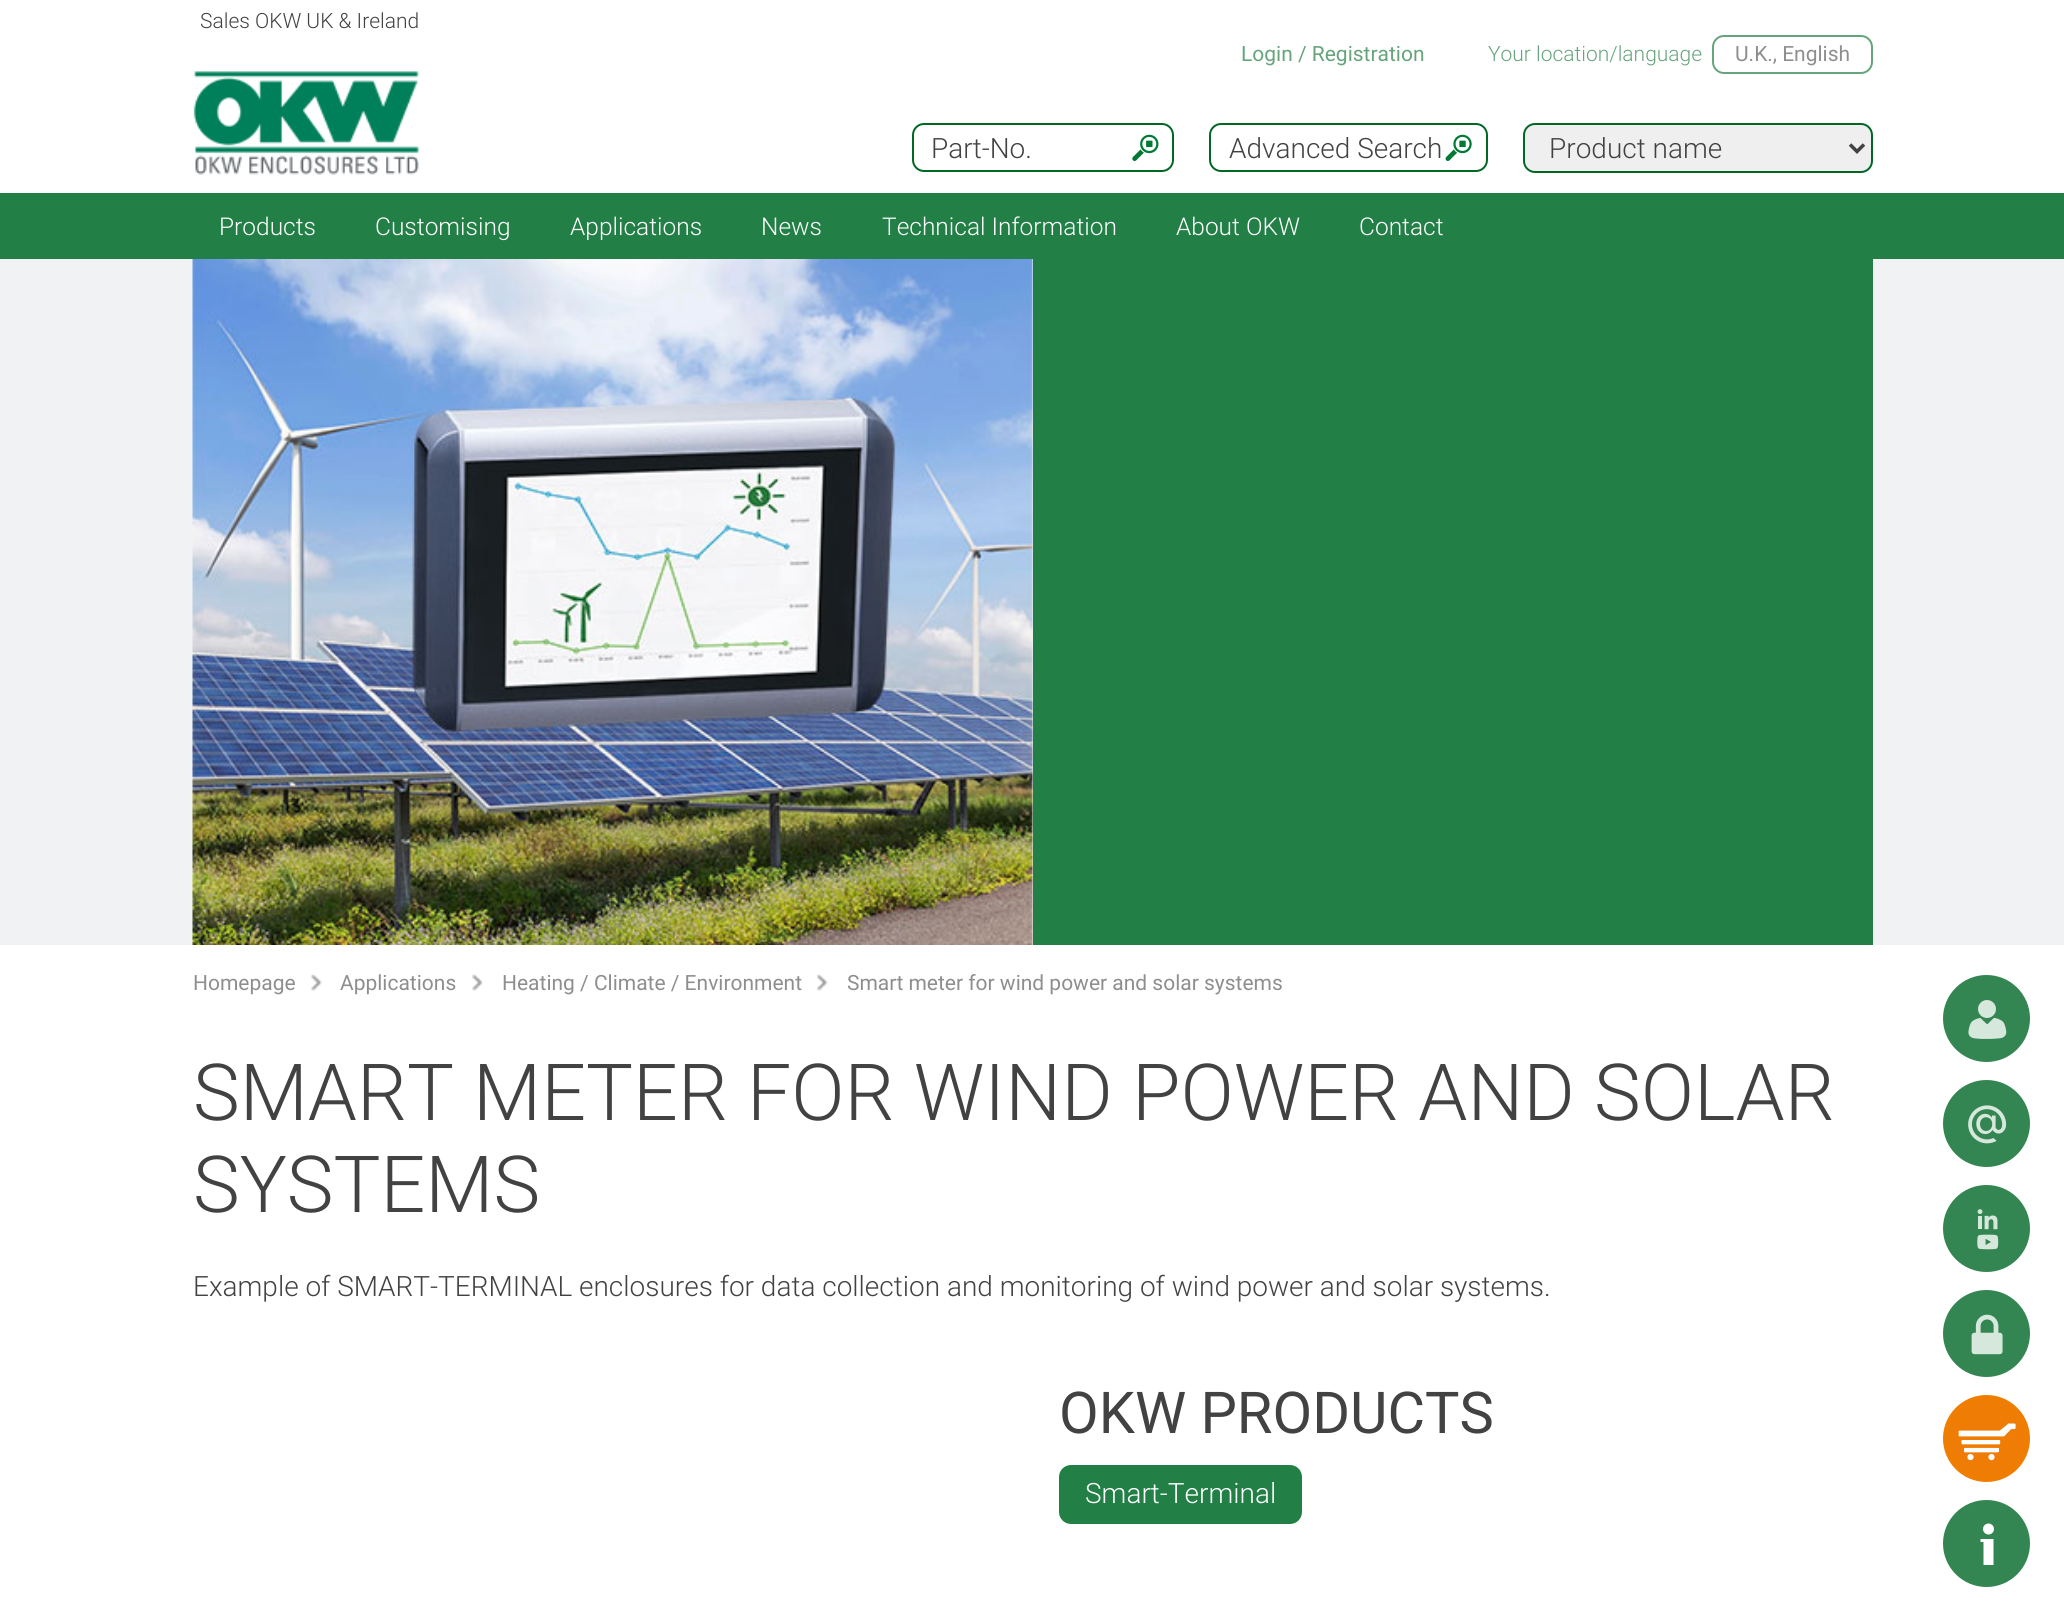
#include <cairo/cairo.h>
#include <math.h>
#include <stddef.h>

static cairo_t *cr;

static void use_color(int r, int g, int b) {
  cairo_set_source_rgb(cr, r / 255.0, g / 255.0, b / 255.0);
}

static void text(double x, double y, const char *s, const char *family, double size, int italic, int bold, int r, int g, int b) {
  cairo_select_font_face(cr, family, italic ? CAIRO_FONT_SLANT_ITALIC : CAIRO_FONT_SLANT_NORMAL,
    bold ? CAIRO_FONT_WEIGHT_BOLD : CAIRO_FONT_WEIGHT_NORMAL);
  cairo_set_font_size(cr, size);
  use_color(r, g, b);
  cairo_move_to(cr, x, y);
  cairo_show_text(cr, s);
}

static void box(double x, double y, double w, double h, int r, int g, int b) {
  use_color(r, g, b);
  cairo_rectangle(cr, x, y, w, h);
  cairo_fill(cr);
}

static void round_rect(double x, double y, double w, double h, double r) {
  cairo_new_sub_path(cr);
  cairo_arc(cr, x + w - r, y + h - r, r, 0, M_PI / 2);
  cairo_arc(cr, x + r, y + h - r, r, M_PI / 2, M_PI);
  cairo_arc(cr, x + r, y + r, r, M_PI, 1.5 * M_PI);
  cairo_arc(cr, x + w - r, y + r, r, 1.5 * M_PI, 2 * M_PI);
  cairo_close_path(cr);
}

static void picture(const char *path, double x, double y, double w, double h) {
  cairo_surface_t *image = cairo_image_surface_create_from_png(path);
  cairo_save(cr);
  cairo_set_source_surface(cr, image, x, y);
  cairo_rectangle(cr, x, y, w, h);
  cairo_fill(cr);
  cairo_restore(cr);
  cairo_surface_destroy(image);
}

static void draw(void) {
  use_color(255, 255, 255);
  cairo_paint(cr);
  picture("img_01.png", 193, 71, 226, 104);
  round_rect(1713, 36, 159, 37, 11);
  use_color(102, 164, 124);
  cairo_stroke(cr);
  picture("img_02.png", 1132, 134, 27, 27);
  round_rect(913, 124, 260, 47, 11);
  use_color(0, 103, 37);
  cairo_stroke(cr);
  picture("img_03.png", 1445, 134, 27, 27);
  round_rect(1210, 124, 277, 47, 11);
  cairo_stroke(cr);
  use_color(239, 239, 239);
  round_rect(1524, 124, 348, 48, 11);
  cairo_fill_preserve(cr);
  use_color(0, 103, 37);
  cairo_stroke(cr);
  cairo_new_path(cr);
  cairo_move_to(cr, 1850, 144.5);
  cairo_line_to(cr, 1857, 151.5);
  cairo_line_to(cr, 1864, 144.5);
  use_color(66, 66, 66);
  cairo_set_line_width(cr, 3.5);
  cairo_stroke(cr);
  box(0, 193, 2064, 66, 34, 127, 70);
  box(0, 259, 2064, 686, 241, 242, 243);
  picture("img_04.png", 192, 259, 841, 686);
  box(1033, 259, 840, 686, 34, 127, 70);
  picture("img_05.png", 311, 974, 11, 17);
  picture("img_06.png", 472, 974, 11, 17);
  picture("img_07.png", 817, 974, 11, 17);
  use_color(51, 133, 81);
  cairo_arc(cr, 1986.5, 1018.5, 43.5, 0, 2 * M_PI);
  cairo_fill(cr);
  picture("img_08.png", 1968, 1000, 39, 39);
  cairo_arc(cr, 1986.5, 1123.5, 43.5, 0, 2 * M_PI);
  cairo_fill(cr);
  picture("img_09.png", 1968, 1105, 39, 39);
  cairo_arc(cr, 1986.5, 1228.5, 43.5, 0, 2 * M_PI);
  cairo_fill(cr);
  picture("img_10.png", 1977, 1209, 22, 41);
  cairo_arc(cr, 1986.5, 1333.5, 43.5, 0, 2 * M_PI);
  cairo_fill(cr);
  picture("img_11.png", 1971, 1314, 32, 41);
  use_color(239, 125, 0);
  cairo_arc(cr, 1986.5, 1438.5, 43.5, 0, 2 * M_PI);
  cairo_fill(cr);
  picture("img_12.png", 1948, 1400, 76, 77);
  use_color(34, 127, 70);
  round_rect(1059, 1465, 243, 59, 12);
  cairo_fill(cr);
  use_color(51, 133, 81);
  cairo_arc(cr, 1986.5, 1543.5, 43.5, 0, 2 * M_PI);
  cairo_fill(cr);
  use_color(255, 255, 255);
  cairo_new_path(cr);
  cairo_move_to(cr, 1983.5, 1539);
  cairo_line_to(cr, 1980.5, 1539);
  cairo_line_to(cr, 1980.5, 1542);
  cairo_line_to(cr, 1983.5, 1542);
  cairo_line_to(cr, 1983.5, 1565);
  cairo_line_to(cr, 1993.5, 1565);
  cairo_line_to(cr, 1993.5, 1539);
  cairo_close_path(cr);
  cairo_fill(cr);
  cairo_arc(cr, 1988.5, 1529, 5.5, 0, 2 * M_PI);
  cairo_fill(cr);
  text(200, 28, "Sales OKW UK & Ireland", "Roboto Light", 21, 0, 0, 66, 66, 66);
  text(1241, 61, "Login / Registration", "Roboto", 21, 0, 0, 102, 164, 124);
  text(1488, 61, "Your location/language", "Roboto Light", 21, 0, 0, 102, 164, 124);
  text(1735, 61, "U.K., English", "Roboto", 21, 0, 0, 142, 142, 142);
  text(931, 158, "Part-No.", "Roboto Light", 28, 0, 0, 66, 66, 66);
  text(1229, 158, "Advanced Search", "Roboto Light", 28, 0, 0, 66, 66, 66);
  text(1549, 158, "Product name", "Roboto Light", 28, 0, 0, 66, 66, 66);
  text(219, 235, "Products", "Roboto Light", 24.5, 0, 0, 255, 255, 255);
  text(375, 235, "Customising", "Roboto Light", 24.5, 0, 0, 255, 255, 255);
  text(570, 235, "Applications", "Roboto Light", 24.5, 0, 0, 255, 255, 255);
  text(761, 235, "News", "Roboto Light", 24.5, 0, 0, 255, 255, 255);
  text(882, 235, "Technical Information", "Roboto Light", 24.5, 0, 0, 255, 255, 255);
  text(1176, 235, "About OKW", "Roboto Light", 24.5, 0, 0, 255, 255, 255);
  text(1359, 235, "Contact", "Roboto Light", 24.5, 0, 0, 255, 255, 255);
  text(193, 990, "Homepage", "Roboto", 21, 0, 0, 142, 142, 142);
  text(340, 990, "Applications", "Roboto", 21, 0, 0, 142, 142, 142);
  text(502, 990, "Heating / Climate / Environment", "Roboto", 21, 0, 0, 142, 142, 142);
  text(847, 990, "Smart meter for wind power and solar systems", "Roboto", 21, 0, 0, 142, 142, 142);
  text(193, 1120, "SMART METER FOR WIND POWER AND SOLAR", "Roboto Light", 78.75, 0, 0, 66, 66, 66);
  text(193, 1212, "SYSTEMS", "Roboto Light", 78.75, 0, 0, 66, 66, 66);
  text(193, 1296, "Example of SMART-TERMINAL enclosures for data collection and monitoring of wind power and solar systems.", "Roboto Light", 28, 0, 0, 66, 66, 66);
  text(1059, 1433, "OKW PRODUCTS", "Roboto", 57.75, 0, 0, 66, 66, 66);
  text(1085, 1503, "Smart-Terminal", "Roboto Light", 28, 0, 0, 255, 255, 255);
}

int main(void) {
  cairo_surface_t *surface = cairo_image_surface_create(CAIRO_FORMAT_RGB24, 2064, 1622);
  cr = cairo_create(surface);
  cairo_font_options_t *options = cairo_font_options_create();
  cairo_font_options_set_hint_metrics(options, CAIRO_HINT_METRICS_OFF);
  cairo_font_options_set_hint_style(options, CAIRO_HINT_STYLE_NONE);
  cairo_set_font_options(cr, options);
  cairo_set_miter_limit(cr, 4);
  draw();
  cairo_surface_write_to_png(surface, "out.png");
  cairo_font_options_destroy(options);
  cairo_destroy(cr);
  cairo_surface_destroy(surface);
  return 0;
}
